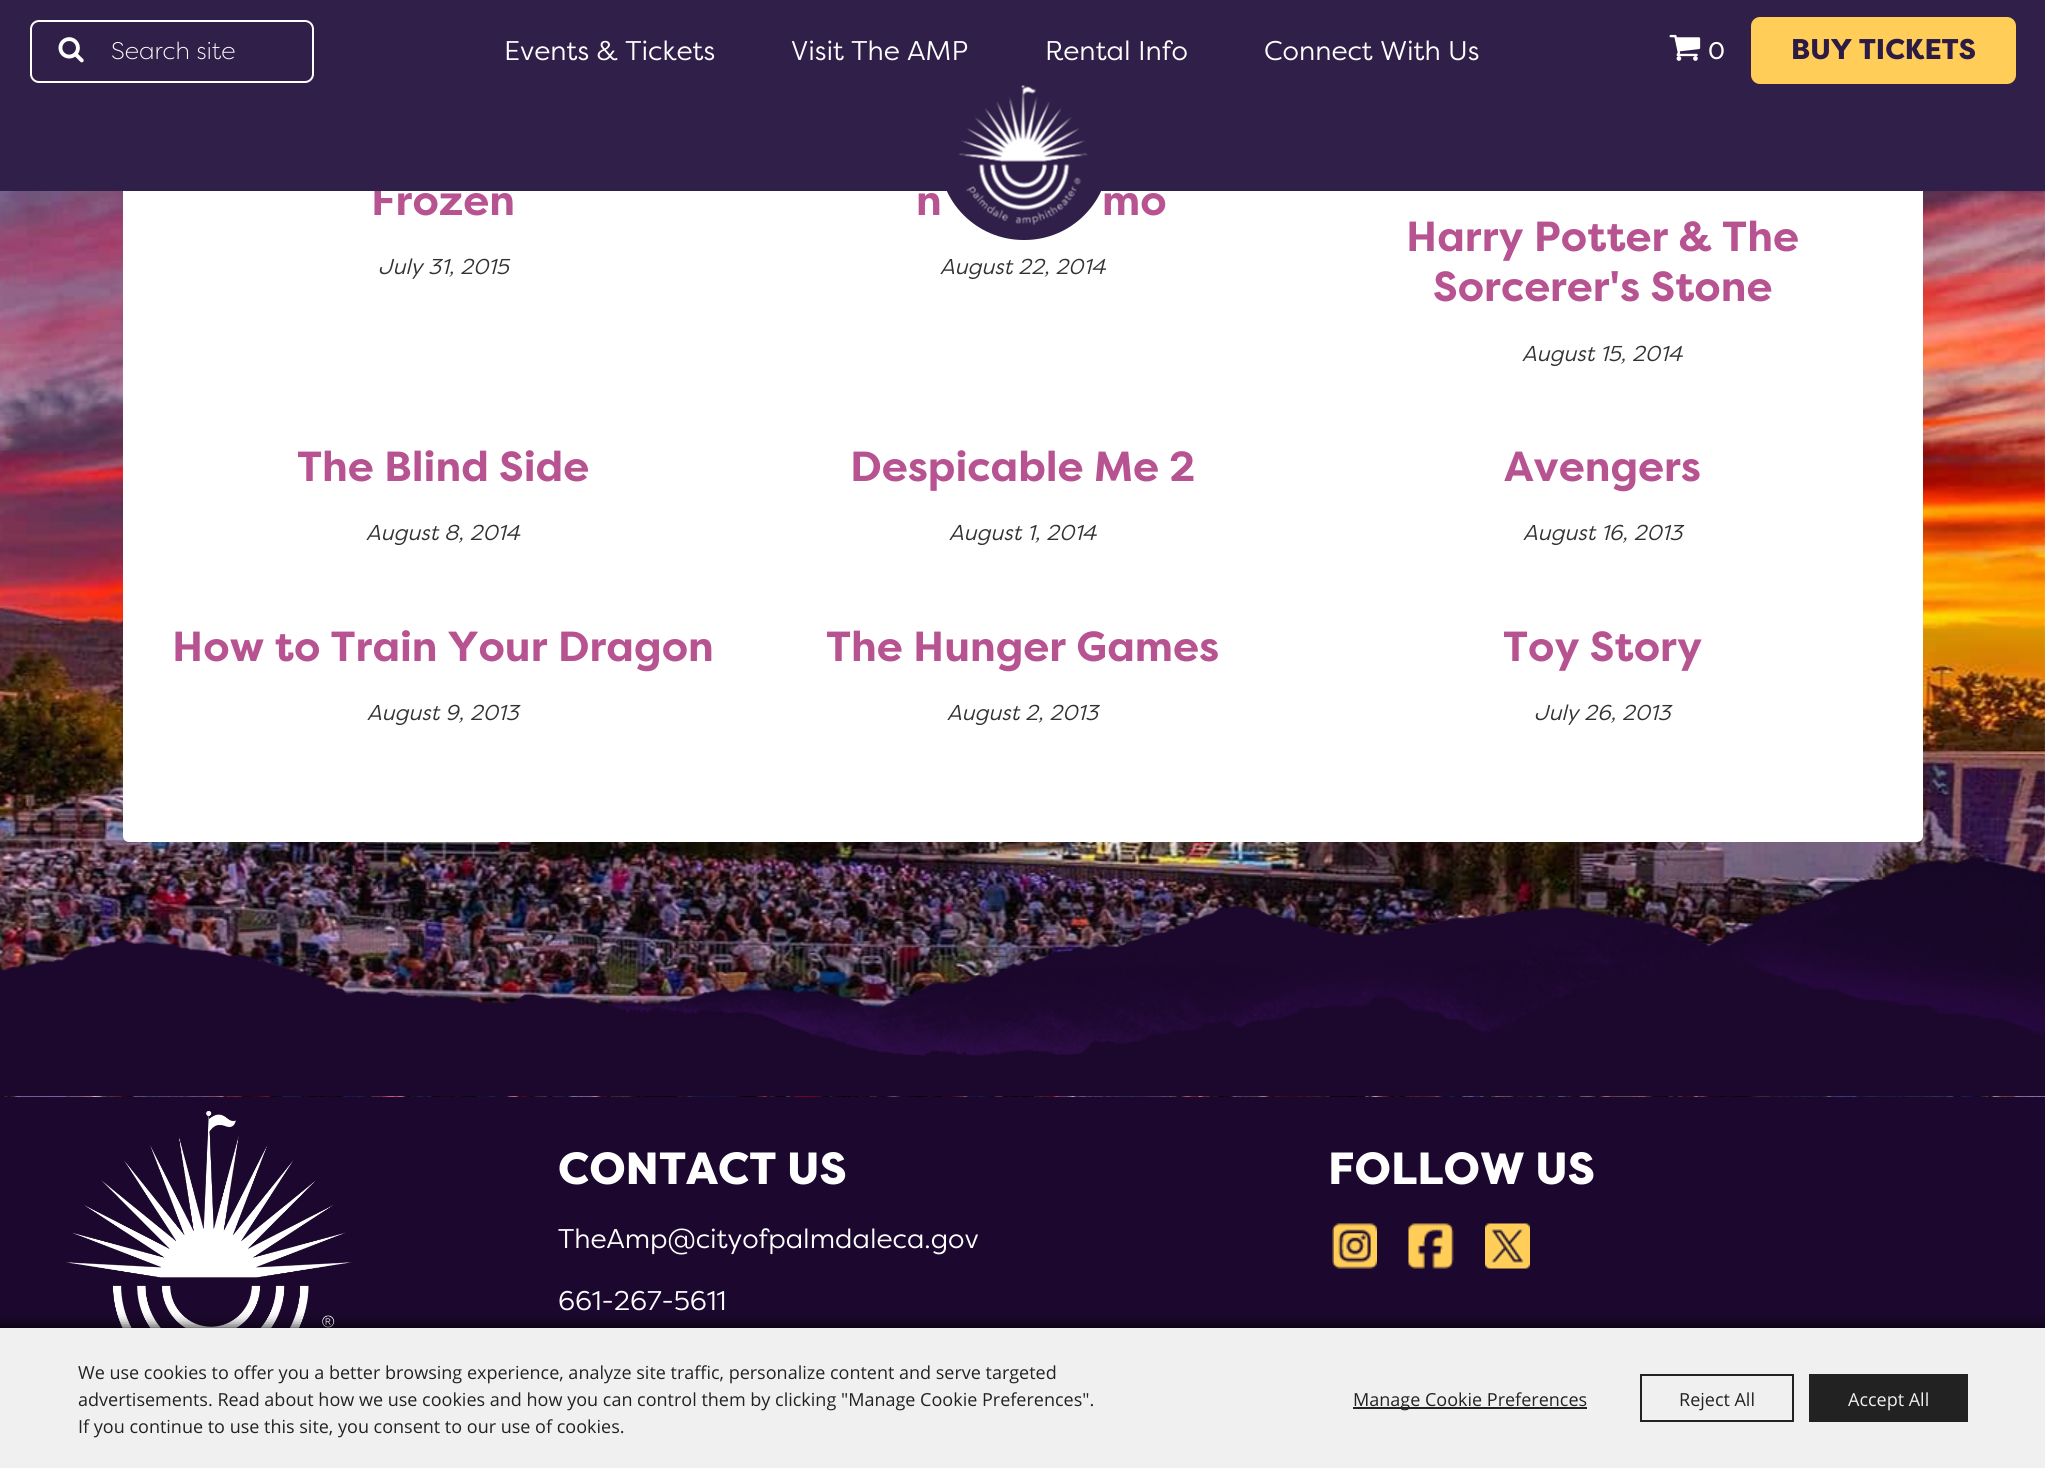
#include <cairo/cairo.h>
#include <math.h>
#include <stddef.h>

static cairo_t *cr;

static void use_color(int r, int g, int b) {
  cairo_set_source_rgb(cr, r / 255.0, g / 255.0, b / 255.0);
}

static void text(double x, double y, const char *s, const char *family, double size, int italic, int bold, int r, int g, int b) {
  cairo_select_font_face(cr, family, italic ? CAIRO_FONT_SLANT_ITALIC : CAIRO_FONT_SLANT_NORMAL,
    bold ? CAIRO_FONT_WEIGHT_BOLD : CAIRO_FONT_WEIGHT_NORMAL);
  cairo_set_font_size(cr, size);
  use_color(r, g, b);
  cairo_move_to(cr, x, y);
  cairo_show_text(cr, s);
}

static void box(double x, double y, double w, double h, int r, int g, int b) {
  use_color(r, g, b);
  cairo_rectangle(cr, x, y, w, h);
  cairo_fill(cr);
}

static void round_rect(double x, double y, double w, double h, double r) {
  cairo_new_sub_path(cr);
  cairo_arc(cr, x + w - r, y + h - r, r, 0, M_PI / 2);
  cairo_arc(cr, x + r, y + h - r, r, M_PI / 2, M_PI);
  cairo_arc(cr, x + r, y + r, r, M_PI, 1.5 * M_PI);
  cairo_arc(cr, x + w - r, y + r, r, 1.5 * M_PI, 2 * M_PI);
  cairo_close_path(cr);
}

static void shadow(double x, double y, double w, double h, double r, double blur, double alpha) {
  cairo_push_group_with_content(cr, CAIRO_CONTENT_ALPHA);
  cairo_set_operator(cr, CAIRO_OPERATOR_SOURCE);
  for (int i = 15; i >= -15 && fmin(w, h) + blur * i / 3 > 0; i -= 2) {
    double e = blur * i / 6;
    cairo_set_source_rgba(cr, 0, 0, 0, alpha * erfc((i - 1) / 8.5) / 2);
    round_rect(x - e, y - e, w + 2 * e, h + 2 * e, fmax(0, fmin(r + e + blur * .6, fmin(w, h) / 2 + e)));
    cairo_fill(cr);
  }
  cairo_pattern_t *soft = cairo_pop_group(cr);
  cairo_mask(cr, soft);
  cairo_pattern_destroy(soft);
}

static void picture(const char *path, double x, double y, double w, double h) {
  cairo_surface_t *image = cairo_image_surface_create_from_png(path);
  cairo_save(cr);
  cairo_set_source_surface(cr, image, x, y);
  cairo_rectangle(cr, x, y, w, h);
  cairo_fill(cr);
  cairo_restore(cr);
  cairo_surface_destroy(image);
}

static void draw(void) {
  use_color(255, 255, 255);
  cairo_paint(cr);
  picture("img_01.png", 0, 191, 2045, 906);
  use_color(255, 255, 255);
  round_rect(123, -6, 1800, 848, 6);
  cairo_fill(cr);
  box(0, 1097, 2045, 231, 28, 8, 46);
  picture("img_05.png", 0, 857, 2045, 239);
  picture("img_06.png", 66, 1111, 286, 217);
  picture("img_07.png", 1332, 1223, 45, 46);
  picture("img_08.png", 1408, 1223, 46, 46);
  picture("img_09.png", 1485, 1223, 45, 46);
  use_color(0, 0, 0);
  shadow(-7, 1328, 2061, 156, 0, 7.5, 1);
  box(0, 1328, 2045, 140, 240, 240, 240);
  box(1353, 1407, 234, 2, 34, 34, 34);
  cairo_rectangle(cr, 1641, 1375, 152, 46);
  cairo_stroke(cr);
  box(1809, 1374, 159, 48, 34, 34, 34);
  text(371, 215, "Frozen", "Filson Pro", 42, 0, 1, 183, 83, 145);
  box(0, 0, 2045, 191, 48, 31, 72);
  text(1264, 60, "Connect With Us", "Filson Pro", 27, 0, 0, 255, 255, 255);
  text(1045, 60, "Rental Info", "Filson Pro", 27, 0, 0, 255, 255, 255);
  text(791, 60, "Visit The AMP", "Filson Pro", 27, 0, 0, 255, 255, 255);
  text(504, 60, "Events & Tickets", "Filson Pro", 27, 0, 0, 255, 255, 255);
  round_rect(31, 21, 282, 61, 8);
  cairo_stroke(cr);
  picture("img_02.png", 58, 37, 26, 26);
  text(111, 59, "Search site", "Filson Pro Light", 24, 0, 0, 255, 255, 255);
  picture("img_03.png", 1669, 34, 32, 27);
  use_color(255, 205, 88);
  round_rect(1751, 17, 265, 67, 9);
  cairo_fill(cr);
  text(1791, 59, "BUY TICKETS", "Filson Pro Black", 28.5, 0, 0, 44, 27, 68);
  text(1708, 59, "0", "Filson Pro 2", 24, 0, 0, 255, 255, 255);
  text(378, 274, "July 31, 2015", "Filson Pro", 21.5, 1, 0, 50, 50, 50);
  text(916, 215, "n", "Filson Pro", 42, 0, 1, 183, 83, 145);
  text(1102, 215, "mo", "Filson Pro", 42, 0, 1, 183, 83, 145);
  use_color(48, 31, 72);
  round_rect(939, 71, 170, 169, 84.5);
  cairo_fill(cr);
  picture("img_04.png", 958, 85, 130, 141);
  text(940, 274, "August 22, 2014", "Filson Pro", 21.5, 1, 0, 50, 50, 50);
  text(1406, 251, "Harry Potter & The", "Filson Pro", 42, 0, 1, 183, 83, 145);
  text(1433, 301, "Sorcerer's Stone", "Filson Pro", 42, 0, 1, 183, 83, 145);
  text(1522, 361, "August 15, 2014", "Filson Pro", 21.5, 1, 0, 50, 50, 50);
  text(297, 481, "The Blind Side", "Filson Pro", 42, 0, 1, 183, 83, 145);
  text(366, 540, "August 8, 2014", "Filson Pro", 21.5, 1, 0, 50, 50, 50);
  text(850, 481, "Despicable Me 2", "Filson Pro", 42, 0, 1, 183, 83, 145);
  text(949, 540, "August 1, 2014", "Filson Pro", 21.5, 1, 0, 50, 50, 50);
  text(1504, 481, "Avengers", "Filson Pro", 42, 0, 1, 183, 83, 145);
  text(1523, 540, "August 16, 2013", "Filson Pro", 21.5, 1, 0, 50, 50, 50);
  text(172, 661, "How to Train Your Dragon", "Filson Pro", 42, 0, 1, 183, 83, 145);
  text(367, 720, "August 9, 2013", "Filson Pro", 21.5, 1, 0, 50, 50, 50);
  text(826, 661, "The Hunger Games", "Filson Pro", 42, 0, 1, 183, 83, 145);
  text(947, 720, "August 2, 2013", "Filson Pro", 21.5, 1, 0, 50, 50, 50);
  text(1503, 661, "Toy Story", "Filson Pro", 42, 0, 1, 183, 83, 145);
  text(1534, 720, "July 26, 2013", "Filson Pro", 21.5, 1, 0, 50, 50, 50);
  text(558, 1184, "CONTACT US", "Filson Pro Black", 45, 0, 0, 255, 255, 255);
  text(558, 1248, "TheAmp@cityofpalmdaleca.gov", "Filson Pro", 27, 0, 0, 255, 255, 255);
  text(558, 1310, "661-267-5611", "Filson Pro", 27, 0, 0, 255, 255, 255);
  text(1328, 1184, "FOLLOW US", "Filson Pro Black", 45, 0, 0, 255, 255, 255);
  text(78, 1379, "We use cookies to offer you a better browsing experience, analyze site traffic, personalize content and serve targeted", "Open Sans", 18, 0, 0, 34, 34, 34);
  text(78, 1406, "advertisements. Read about how we use cookies and how you can control them by clicking \"Manage Cookie Preferences\".", "Open Sans", 18, 0, 0, 34, 34, 34);
  text(78, 1433, "If you continue to use this site, you consent to our use of cookies.", "Open Sans", 18, 0, 0, 34, 34, 34);
  text(1353, 1406, "Manage Cookie Preferences", "Open Sans", 18, 0, 0, 34, 34, 34);
  text(1679, 1406, "Reject All", "Open Sans", 18, 0, 0, 34, 34, 34);
  text(1848, 1406, "Accept All", "Open Sans", 18, 0, 0, 240, 240, 240);
}

int main(void) {
  cairo_surface_t *surface = cairo_image_surface_create(CAIRO_FORMAT_RGB24, 2045, 1468);
  cr = cairo_create(surface);
  cairo_font_options_t *options = cairo_font_options_create();
  cairo_font_options_set_hint_metrics(options, CAIRO_HINT_METRICS_OFF);
  cairo_font_options_set_hint_style(options, CAIRO_HINT_STYLE_NONE);
  cairo_set_font_options(cr, options);
  cairo_set_miter_limit(cr, 4);
  draw();
  cairo_surface_write_to_png(surface, "out.png");
  cairo_font_options_destroy(options);
  cairo_destroy(cr);
  cairo_surface_destroy(surface);
  return 0;
}
